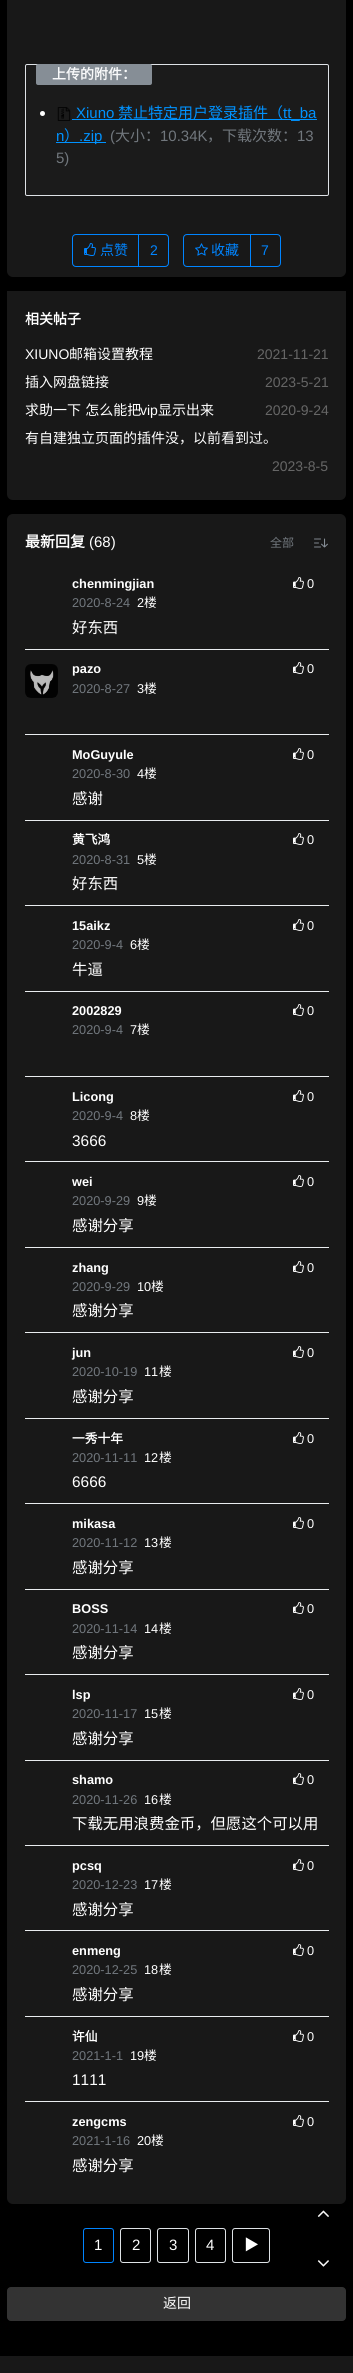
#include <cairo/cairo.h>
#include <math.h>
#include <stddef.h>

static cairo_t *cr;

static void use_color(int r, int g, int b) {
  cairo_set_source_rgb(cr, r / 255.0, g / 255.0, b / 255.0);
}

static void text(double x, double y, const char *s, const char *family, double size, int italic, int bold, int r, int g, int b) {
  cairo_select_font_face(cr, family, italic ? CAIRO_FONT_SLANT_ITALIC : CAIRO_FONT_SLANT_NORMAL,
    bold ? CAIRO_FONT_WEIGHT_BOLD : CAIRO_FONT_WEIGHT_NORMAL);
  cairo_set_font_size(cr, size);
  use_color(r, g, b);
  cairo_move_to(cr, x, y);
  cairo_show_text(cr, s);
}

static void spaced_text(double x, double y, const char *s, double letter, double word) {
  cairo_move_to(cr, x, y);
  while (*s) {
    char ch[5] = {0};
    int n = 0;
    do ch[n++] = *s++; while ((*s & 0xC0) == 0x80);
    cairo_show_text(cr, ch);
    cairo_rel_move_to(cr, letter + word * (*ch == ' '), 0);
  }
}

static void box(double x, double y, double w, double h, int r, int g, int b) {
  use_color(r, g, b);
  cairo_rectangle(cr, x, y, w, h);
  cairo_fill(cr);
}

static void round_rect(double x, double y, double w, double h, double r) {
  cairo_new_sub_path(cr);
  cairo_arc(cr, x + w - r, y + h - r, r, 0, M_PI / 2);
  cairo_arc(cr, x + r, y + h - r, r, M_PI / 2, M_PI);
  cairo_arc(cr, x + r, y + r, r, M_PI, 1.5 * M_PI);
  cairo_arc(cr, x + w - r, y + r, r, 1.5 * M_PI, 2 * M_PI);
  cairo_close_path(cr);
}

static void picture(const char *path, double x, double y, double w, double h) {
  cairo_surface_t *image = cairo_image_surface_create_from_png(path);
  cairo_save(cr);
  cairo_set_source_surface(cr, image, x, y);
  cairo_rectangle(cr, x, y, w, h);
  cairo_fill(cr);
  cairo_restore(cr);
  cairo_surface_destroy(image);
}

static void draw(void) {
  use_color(0, 0, 0);
  cairo_paint(cr);
  use_color(24, 24, 24);
  round_rect(7, -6, 339, 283, 6);
  cairo_fill(cr);
  use_color(27, 27, 27);
  round_rect(25.5, 64.5, 303, 131, 1.5);
  cairo_fill_preserve(cr);
  use_color(222, 226, 230);
  cairo_set_line_width(cr, 1);
  cairo_stroke(cr);
  use_color(134, 142, 150);
  round_rect(36, 64, 116, 21, 2);
  cairo_fill(cr);
  use_color(255, 255, 255);
  cairo_arc(cr, 42.5, 113.5, 2.5, 0, 2 * M_PI);
  cairo_fill(cr);
  picture("img_01.png", 57, 107, 14, 14);
  box(72, 119, 245, 1, 0, 146, 255);
  box(56, 142, 50, 1, 0, 146, 255);
  cairo_new_path(cr);
  cairo_move_to(cr, 76, 234.5);
  cairo_line_to(cr, 138.5, 234.5);
  cairo_line_to(cr, 138.5, 266.5);
  cairo_line_to(cr, 76, 266.5);
  cairo_curve_to(cr, 74, 266.5, 72.5, 265, 72.5, 263);
  cairo_line_to(cr, 72.5, 238);
  cairo_curve_to(cr, 72.5, 236, 74, 234.5, 76, 234.5);
  cairo_close_path(cr);
  use_color(0, 132, 255);
  cairo_stroke(cr);
  picture("img_02.png", 84, 243, 12, 13);
  cairo_new_path(cr);
  cairo_move_to(cr, 138.5, 234.5);
  cairo_line_to(cr, 165, 234.5);
  cairo_curve_to(cr, 167, 234.5, 168.5, 236, 168.5, 238);
  cairo_line_to(cr, 168.5, 263);
  cairo_curve_to(cr, 168.5, 265, 167, 266.5, 165, 266.5);
  cairo_line_to(cr, 138.5, 266.5);
  cairo_close_path(cr);
  cairo_stroke(cr);
  cairo_new_path(cr);
  cairo_move_to(cr, 187, 234.5);
  cairo_line_to(cr, 250.5, 234.5);
  cairo_line_to(cr, 250.5, 266.5);
  cairo_line_to(cr, 187, 266.5);
  cairo_curve_to(cr, 185, 266.5, 183.5, 265, 183.5, 263);
  cairo_line_to(cr, 183.5, 238);
  cairo_curve_to(cr, 183.5, 236, 185, 234.5, 187, 234.5);
  cairo_close_path(cr);
  cairo_stroke(cr);
  picture("img_03.png", 195, 243, 13, 13);
  cairo_new_path(cr);
  cairo_move_to(cr, 250.5, 234.5);
  cairo_line_to(cr, 277, 234.5);
  cairo_curve_to(cr, 279, 234.5, 280.5, 236, 280.5, 238);
  cairo_line_to(cr, 280.5, 263);
  cairo_curve_to(cr, 280.5, 265, 279, 266.5, 277, 266.5);
  cairo_line_to(cr, 250.5, 266.5);
  cairo_close_path(cr);
  cairo_stroke(cr);
  use_color(24, 24, 24);
  cairo_new_path(cr);
  cairo_move_to(cr, 7, 291);
  cairo_line_to(cr, 346, 291);
  cairo_line_to(cr, 346, 494);
  cairo_curve_to(cr, 346, 497.5, 343.5, 500, 340, 500);
  cairo_line_to(cr, 13, 500);
  cairo_curve_to(cr, 9.5, 500, 7, 497.5, 7, 494);
  cairo_close_path(cr);
  cairo_fill(cr);
  round_rect(7, 514, 339, 1690, 6);
  cairo_fill(cr);
  picture("img_04.png", 314, 538, 14, 10);
  box(25, 649, 304, 1, 233, 236, 239);
  picture("img_05.png", 293, 577, 11, 12);
  box(25, 734, 304, 1, 233, 236, 239);
  picture("img_06.png", 25, 664, 33, 34);
  picture("img_05.png", 293, 662, 11, 12);
  box(25, 820, 304, 1, 233, 236, 239);
  picture("img_05.png", 293, 748, 11, 12);
  box(25, 905, 304, 1, 233, 236, 239);
  picture("img_05.png", 293, 833, 11, 12);
  box(25, 991, 304, 1, 233, 236, 239);
  picture("img_05.png", 293, 919, 11, 12);
  box(25, 1076, 304, 1, 233, 236, 239);
  picture("img_05.png", 293, 1004, 11, 12);
  box(25, 1161, 304, 1, 233, 236, 239);
  picture("img_05.png", 293, 1090, 11, 12);
  box(25, 1247, 304, 1, 233, 236, 239);
  picture("img_05.png", 293, 1175, 11, 12);
  box(25, 1332, 304, 1, 233, 236, 239);
  picture("img_05.png", 293, 1261, 11, 12);
  box(25, 1418, 304, 1, 233, 236, 239);
  picture("img_05.png", 293, 1346, 11, 12);
  box(25, 1503, 304, 1, 233, 236, 239);
  picture("img_05.png", 293, 1432, 11, 12);
  box(25, 1589, 304, 1, 233, 236, 239);
  picture("img_05.png", 293, 1517, 11, 12);
  box(25, 1674, 304, 1, 233, 236, 239);
  picture("img_05.png", 293, 1602, 11, 12);
  box(25, 1760, 304, 1, 233, 236, 239);
  picture("img_05.png", 293, 1688, 11, 12);
  box(25, 1845, 304, 1, 233, 236, 239);
  picture("img_05.png", 293, 1773, 11, 12);
  box(25, 1930, 304, 1, 233, 236, 239);
  picture("img_05.png", 293, 1859, 11, 12);
  box(25, 2016, 304, 1, 233, 236, 239);
  picture("img_05.png", 293, 1944, 11, 12);
  box(25, 2101, 304, 1, 233, 236, 239);
  picture("img_05.png", 293, 2030, 11, 12);
  picture("img_05.png", 293, 2115, 11, 12);
  round_rect(83.5, 2228.5, 30, 34, 2.5);
  use_color(0, 132, 255);
  cairo_stroke(cr);
  round_rect(120.5, 2228.5, 30, 34, 2.5);
  use_color(222, 226, 230);
  cairo_stroke(cr);
  round_rect(157.5, 2228.5, 31, 34, 2.5);
  cairo_stroke(cr);
  round_rect(195.5, 2228.5, 30, 34, 2.5);
  cairo_stroke(cr);
  round_rect(232.5, 2228.5, 37, 34, 2.5);
  cairo_stroke(cr);
  use_color(51, 51, 51);
  round_rect(7.5, 2287.5, 338, 33, 3.5);
  cairo_fill_preserve(cr);
  cairo_stroke(cr);
  picture("img_07.png", 317, 2210, 12, 7);
  picture("img_08.png", 317, 2260, 12, 7);
  box(0, 2356, 353, 17, 24, 24, 24);
  text(52, 79, "上传的附件：", "Noto Sans CJK SC", 14, 0, 1, 248, 249, 250);
  text(76, 118, "Xiuno", "Liberation Sans", 15, 0, 0, 0, 146, 255);
  text(118, 118, "禁止特定用户登录插件（", "Noto Sans CJK SC", 15, 0, 0, 0, 146, 255);
  text(283, 118, "tt_ba", "Liberation Sans", 15, 0, 0, 0, 146, 255);
  text(56, 141, "n", "Liberation Sans", 15, 0, 0, 0, 146, 255);
  text(64, 141, "）", "Noto Sans CJK SC", 15, 0, 0, 0, 146, 255);
  text(79, 141, ".zip", "Liberation Sans", 15, 0, 0, 0, 146, 255);
  text(110, 141, "(", "Liberation Sans", 15, 0, 0, 113, 119, 125);
  text(115, 141, "大小：", "Noto Sans CJK SC", 15, 0, 0, 113, 119, 125);
  text(160, 141, "10.34K", "Liberation Sans", 15, 0, 0, 113, 119, 125);
  text(207, 141, "，下载次数：", "Noto Sans CJK SC", 15, 0, 0, 113, 119, 125);
  text(297, 141, "13", "Liberation Sans", 15, 0, 0, 113, 119, 125);
  text(56, 163, "5)", "Liberation Sans", 15, 0, 0, 113, 119, 125);
  text(100, 255, "点赞", "Noto Sans CJK SC", 14, 0, 0, 0, 132, 255);
  text(150, 255, "2", "Liberation Sans", 14, 0, 0, 0, 132, 255);
  text(211, 255, "收藏", "Noto Sans CJK SC", 14, 0, 0, 0, 132, 255);
  text(261, 255, "7", "Liberation Sans", 14, 0, 0, 0, 132, 255);
  text(25, 324, "相关帖子", "Noto Sans CJK SC", 14, 0, 1, 255, 255, 255);
  text(25, 359, "XIUNO", "Liberation Sans", 14, 0, 0, 255, 255, 255);
  text(69, 359, "邮箱设置教程", "Noto Sans CJK SC", 14, 0, 0, 255, 255, 255);
  text(257, 359, "2021-11-21", "Liberation Sans", 14, 0, 0, 102, 102, 102);
  text(25, 387, "插入网盘链接", "Noto Sans CJK SC", 14, 0, 0, 255, 255, 255);
  text(265, 387, "2023-5-21", "Liberation Sans", 14, 0, 0, 102, 102, 102);
  cairo_select_font_face(cr, "Noto Sans CJK SC", CAIRO_FONT_SLANT_NORMAL, CAIRO_FONT_WEIGHT_NORMAL);
  use_color(255, 255, 255);
  spaced_text(25, 415, "求助一下 怎么能把", 0, 1);
  text(140, 415, "vip", "Liberation Sans", 14, 0, 0, 255, 255, 255);
  text(158, 415, "显示出来", "Noto Sans CJK SC", 14, 0, 0, 255, 255, 255);
  text(265, 415, "2020-9-24", "Liberation Sans", 14, 0, 0, 102, 102, 102);
  text(25, 443, "有自建独立页面的插件没，以前看到过。", "Noto Sans CJK SC", 14, 0, 0, 255, 255, 255);
  text(272, 471, "2023-8-5", "Liberation Sans", 14, 0, 0, 102, 102, 102);
  text(25, 547, "最新回复", "Noto Sans CJK SC", 15, 0, 1, 255, 255, 255);
  text(89, 547, "(68)", "Liberation Sans", 15, 0, 0, 255, 255, 255);
  text(270, 547, "全部", "Noto Sans CJK SC", 12, 0, 0, 113, 119, 125);
  text(72, 588, "chenmingjian", "Liberation Sans", 12.75, 0, 1, 255, 255, 255);
  text(72, 607, "2020-8-24", "Liberation Sans", 12.75, 0, 0, 113, 119, 125);
  text(137, 607, "2", "Liberation Sans", 12.75, 0, 0, 255, 255, 255);
  text(144, 607, "楼", "Noto Sans CJK SC", 12.75, 0, 0, 255, 255, 255);
  text(307, 588, "0", "Liberation Sans", 12.75, 0, 0, 255, 255, 255);
  text(72, 633, "好东西", "Noto Sans CJK SC", 15.4, 0, 0, 255, 255, 255);
  text(72, 673, "pazo", "Liberation Sans", 12.75, 0, 1, 255, 255, 255);
  text(72, 693, "2020-8-27", "Liberation Sans", 12.75, 0, 0, 113, 119, 125);
  text(137, 693, "3", "Liberation Sans", 12.75, 0, 0, 255, 255, 255);
  text(144, 693, "楼", "Noto Sans CJK SC", 12.75, 0, 0, 255, 255, 255);
  text(307, 673, "0", "Liberation Sans", 12.75, 0, 0, 255, 255, 255);
  text(72, 759, "MoGuyule", "Liberation Sans", 12.75, 0, 1, 255, 255, 255);
  text(72, 778, "2020-8-30", "Liberation Sans", 12.75, 0, 0, 113, 119, 125);
  text(137, 778, "4", "Liberation Sans", 12.75, 0, 0, 255, 255, 255);
  text(144, 778, "楼", "Noto Sans CJK SC", 12.75, 0, 0, 255, 255, 255);
  text(307, 759, "0", "Liberation Sans", 12.75, 0, 0, 255, 255, 255);
  text(72, 804, "感谢", "Noto Sans CJK SC", 15.4, 0, 0, 255, 255, 255);
  text(72, 844, "黄飞鸿", "Noto Sans CJK SC", 12.75, 0, 1, 255, 255, 255);
  text(72, 864, "2020-8-31", "Liberation Sans", 12.75, 0, 0, 113, 119, 125);
  text(137, 864, "5", "Liberation Sans", 12.75, 0, 0, 255, 255, 255);
  text(144, 864, "楼", "Noto Sans CJK SC", 12.75, 0, 0, 255, 255, 255);
  text(307, 844, "0", "Liberation Sans", 12.75, 0, 0, 255, 255, 255);
  text(72, 889, "好东西", "Noto Sans CJK SC", 15.4, 0, 0, 255, 255, 255);
  text(72, 930, "15aikz", "Liberation Sans", 12.75, 0, 1, 255, 255, 255);
  text(72, 949, "2020-9-4", "Liberation Sans", 12.75, 0, 0, 113, 119, 125);
  text(130, 949, "6", "Liberation Sans", 12.75, 0, 0, 255, 255, 255);
  text(137, 949, "楼", "Noto Sans CJK SC", 12.75, 0, 0, 255, 255, 255);
  text(307, 930, "0", "Liberation Sans", 12.75, 0, 0, 255, 255, 255);
  text(72, 975, "牛逼", "Noto Sans CJK SC", 15.4, 0, 0, 255, 255, 255);
  text(72, 1015, "2002829", "Liberation Sans", 12.75, 0, 1, 255, 255, 255);
  text(72, 1034, "2020-9-4", "Liberation Sans", 12.75, 0, 0, 113, 119, 125);
  text(130, 1034, "7", "Liberation Sans", 12.75, 0, 0, 255, 255, 255);
  text(137, 1034, "楼", "Noto Sans CJK SC", 12.75, 0, 0, 255, 255, 255);
  text(307, 1015, "0", "Liberation Sans", 12.75, 0, 0, 255, 255, 255);
  text(72, 1101, "Licong", "Liberation Sans", 12.75, 0, 1, 255, 255, 255);
  text(72, 1120, "2020-9-4", "Liberation Sans", 12.75, 0, 0, 113, 119, 125);
  text(130, 1120, "8", "Liberation Sans", 12.75, 0, 0, 255, 255, 255);
  text(137, 1120, "楼", "Noto Sans CJK SC", 12.75, 0, 0, 255, 255, 255);
  text(307, 1101, "0", "Liberation Sans", 12.75, 0, 0, 255, 255, 255);
  text(72, 1146, "3666", "Liberation Sans", 15.4, 0, 0, 255, 255, 255);
  text(72, 1186, "wei", "Liberation Sans", 12.75, 0, 1, 255, 255, 255);
  text(72, 1205, "2020-9-29", "Liberation Sans", 12.75, 0, 0, 113, 119, 125);
  text(137, 1205, "9", "Liberation Sans", 12.75, 0, 0, 255, 255, 255);
  text(144, 1205, "楼", "Noto Sans CJK SC", 12.75, 0, 0, 255, 255, 255);
  text(307, 1186, "0", "Liberation Sans", 12.75, 0, 0, 255, 255, 255);
  text(72, 1231, "感谢分享", "Noto Sans CJK SC", 15.4, 0, 0, 255, 255, 255);
  text(72, 1272, "zhang", "Liberation Sans", 12.75, 0, 1, 255, 255, 255);
  text(72, 1291, "2020-9-29", "Liberation Sans", 12.75, 0, 0, 113, 119, 125);
  text(137, 1291, "10", "Liberation Sans", 12.75, 0, 0, 255, 255, 255);
  text(151, 1291, "楼", "Noto Sans CJK SC", 12.75, 0, 0, 255, 255, 255);
  text(307, 1272, "0", "Liberation Sans", 12.75, 0, 0, 255, 255, 255);
  text(72, 1316, "感谢分享", "Noto Sans CJK SC", 15.4, 0, 0, 255, 255, 255);
  text(72, 1357, "jun", "Liberation Sans", 12.75, 0, 1, 255, 255, 255);
  text(72, 1376, "2020-10-19", "Liberation Sans", 12.75, 0, 0, 113, 119, 125);
  text(144, 1376, "11", "Liberation Sans", 12.75, 0, 0, 255, 255, 255);
  text(159, 1376, "楼", "Noto Sans CJK SC", 12.75, 0, 0, 255, 255, 255);
  text(307, 1357, "0", "Liberation Sans", 12.75, 0, 0, 255, 255, 255);
  text(72, 1402, "感谢分享", "Noto Sans CJK SC", 15.4, 0, 0, 255, 255, 255);
  text(72, 1443, "一秀十年", "Noto Sans CJK SC", 12.75, 0, 1, 255, 255, 255);
  text(72, 1462, "2020-11-11", "Liberation Sans", 12.75, 0, 0, 113, 119, 125);
  text(144, 1462, "12", "Liberation Sans", 12.75, 0, 0, 255, 255, 255);
  text(159, 1462, "楼", "Noto Sans CJK SC", 12.75, 0, 0, 255, 255, 255);
  text(307, 1443, "0", "Liberation Sans", 12.75, 0, 0, 255, 255, 255);
  text(72, 1487, "6666", "Liberation Sans", 15.4, 0, 0, 255, 255, 255);
  text(72, 1528, "mikasa", "Liberation Sans", 12.75, 0, 1, 255, 255, 255);
  text(72, 1547, "2020-11-12", "Liberation Sans", 12.75, 0, 0, 113, 119, 125);
  text(144, 1547, "13", "Liberation Sans", 12.75, 0, 0, 255, 255, 255);
  text(159, 1547, "楼", "Noto Sans CJK SC", 12.75, 0, 0, 255, 255, 255);
  text(307, 1528, "0", "Liberation Sans", 12.75, 0, 0, 255, 255, 255);
  text(72, 1573, "感谢分享", "Noto Sans CJK SC", 15.4, 0, 0, 255, 255, 255);
  text(72, 1613, "BOSS", "Liberation Sans", 12.75, 0, 1, 255, 255, 255);
  text(72, 1633, "2020-11-14", "Liberation Sans", 12.75, 0, 0, 113, 119, 125);
  text(144, 1633, "14", "Liberation Sans", 12.75, 0, 0, 255, 255, 255);
  text(159, 1633, "楼", "Noto Sans CJK SC", 12.75, 0, 0, 255, 255, 255);
  text(307, 1613, "0", "Liberation Sans", 12.75, 0, 0, 255, 255, 255);
  text(72, 1658, "感谢分享", "Noto Sans CJK SC", 15.4, 0, 0, 255, 255, 255);
  text(72, 1699, "lsp", "Liberation Sans", 12.75, 0, 1, 255, 255, 255);
  text(72, 1718, "2020-11-17", "Liberation Sans", 12.75, 0, 0, 113, 119, 125);
  text(144, 1718, "15", "Liberation Sans", 12.75, 0, 0, 255, 255, 255);
  text(159, 1718, "楼", "Noto Sans CJK SC", 12.75, 0, 0, 255, 255, 255);
  text(307, 1699, "0", "Liberation Sans", 12.75, 0, 0, 255, 255, 255);
  text(72, 1744, "感谢分享", "Noto Sans CJK SC", 15.4, 0, 0, 255, 255, 255);
  text(72, 1784, "shamo", "Liberation Sans", 12.75, 0, 1, 255, 255, 255);
  text(72, 1804, "2020-11-26", "Liberation Sans", 12.75, 0, 0, 113, 119, 125);
  text(144, 1804, "16", "Liberation Sans", 12.75, 0, 0, 255, 255, 255);
  text(159, 1804, "楼", "Noto Sans CJK SC", 12.75, 0, 0, 255, 255, 255);
  text(307, 1784, "0", "Liberation Sans", 12.75, 0, 0, 255, 255, 255);
  text(72, 1829, "下载无用浪费金币，但愿这个可以用", "Noto Sans CJK SC", 15.4, 0, 0, 255, 255, 255);
  text(72, 1870, "pcsq", "Liberation Sans", 12.75, 0, 1, 255, 255, 255);
  text(72, 1889, "2020-12-23", "Liberation Sans", 12.75, 0, 0, 113, 119, 125);
  text(144, 1889, "17", "Liberation Sans", 12.75, 0, 0, 255, 255, 255);
  text(159, 1889, "楼", "Noto Sans CJK SC", 12.75, 0, 0, 255, 255, 255);
  text(307, 1870, "0", "Liberation Sans", 12.75, 0, 0, 255, 255, 255);
  text(72, 1915, "感谢分享", "Noto Sans CJK SC", 15.4, 0, 0, 255, 255, 255);
  text(72, 1955, "enmeng", "Liberation Sans", 12.75, 0, 1, 255, 255, 255);
  text(72, 1974, "2020-12-25", "Liberation Sans", 12.75, 0, 0, 113, 119, 125);
  text(144, 1974, "18", "Liberation Sans", 12.75, 0, 0, 255, 255, 255);
  text(159, 1974, "楼", "Noto Sans CJK SC", 12.75, 0, 0, 255, 255, 255);
  text(307, 1955, "0", "Liberation Sans", 12.75, 0, 0, 255, 255, 255);
  text(72, 2000, "感谢分享", "Noto Sans CJK SC", 15.4, 0, 0, 255, 255, 255);
  text(72, 2041, "许仙", "Noto Sans CJK SC", 12.75, 0, 1, 255, 255, 255);
  text(72, 2060, "2021-1-1", "Liberation Sans", 12.75, 0, 0, 113, 119, 125);
  text(130, 2060, "19", "Liberation Sans", 12.75, 0, 0, 255, 255, 255);
  text(144, 2060, "楼", "Noto Sans CJK SC", 12.75, 0, 0, 255, 255, 255);
  text(307, 2041, "0", "Liberation Sans", 12.75, 0, 0, 255, 255, 255);
  text(72, 2085, "1111", "Liberation Sans", 15.4, 0, 0, 255, 255, 255);
  text(72, 2126, "zengcms", "Liberation Sans", 12.75, 0, 1, 255, 255, 255);
  text(72, 2145, "2021-1-16", "Liberation Sans", 12.75, 0, 0, 113, 119, 125);
  text(137, 2145, "20", "Liberation Sans", 12.75, 0, 0, 255, 255, 255);
  text(151, 2145, "楼", "Noto Sans CJK SC", 12.75, 0, 0, 255, 255, 255);
  text(307, 2126, "0", "Liberation Sans", 12.75, 0, 0, 255, 255, 255);
  text(72, 2171, "感谢分享", "Noto Sans CJK SC", 15.4, 0, 0, 255, 255, 255);
  text(94, 2250, "1", "Liberation Sans", 15, 0, 0, 255, 255, 255);
  text(132, 2250, "2", "Liberation Sans", 15, 0, 0, 255, 255, 255);
  text(169, 2250, "3", "Liberation Sans", 15, 0, 0, 255, 255, 255);
  text(206, 2250, "4", "Liberation Sans", 15, 0, 0, 255, 255, 255);
  text(244, 2250, "▶", "Noto Sans CJK SC", 15, 0, 0, 255, 255, 255);
  text(163, 2308, "返回", "Noto Sans CJK SC", 14, 0, 0, 255, 255, 255);
}

int main(void) {
  cairo_surface_t *surface = cairo_image_surface_create(CAIRO_FORMAT_RGB24, 353, 2373);
  cr = cairo_create(surface);
  cairo_font_options_t *options = cairo_font_options_create();
  cairo_font_options_set_hint_metrics(options, CAIRO_HINT_METRICS_OFF);
  cairo_font_options_set_hint_style(options, CAIRO_HINT_STYLE_NONE);
  cairo_set_font_options(cr, options);
  cairo_set_miter_limit(cr, 4);
  draw();
  cairo_surface_write_to_png(surface, "out.png");
  cairo_font_options_destroy(options);
  cairo_destroy(cr);
  cairo_surface_destroy(surface);
  return 0;
}
